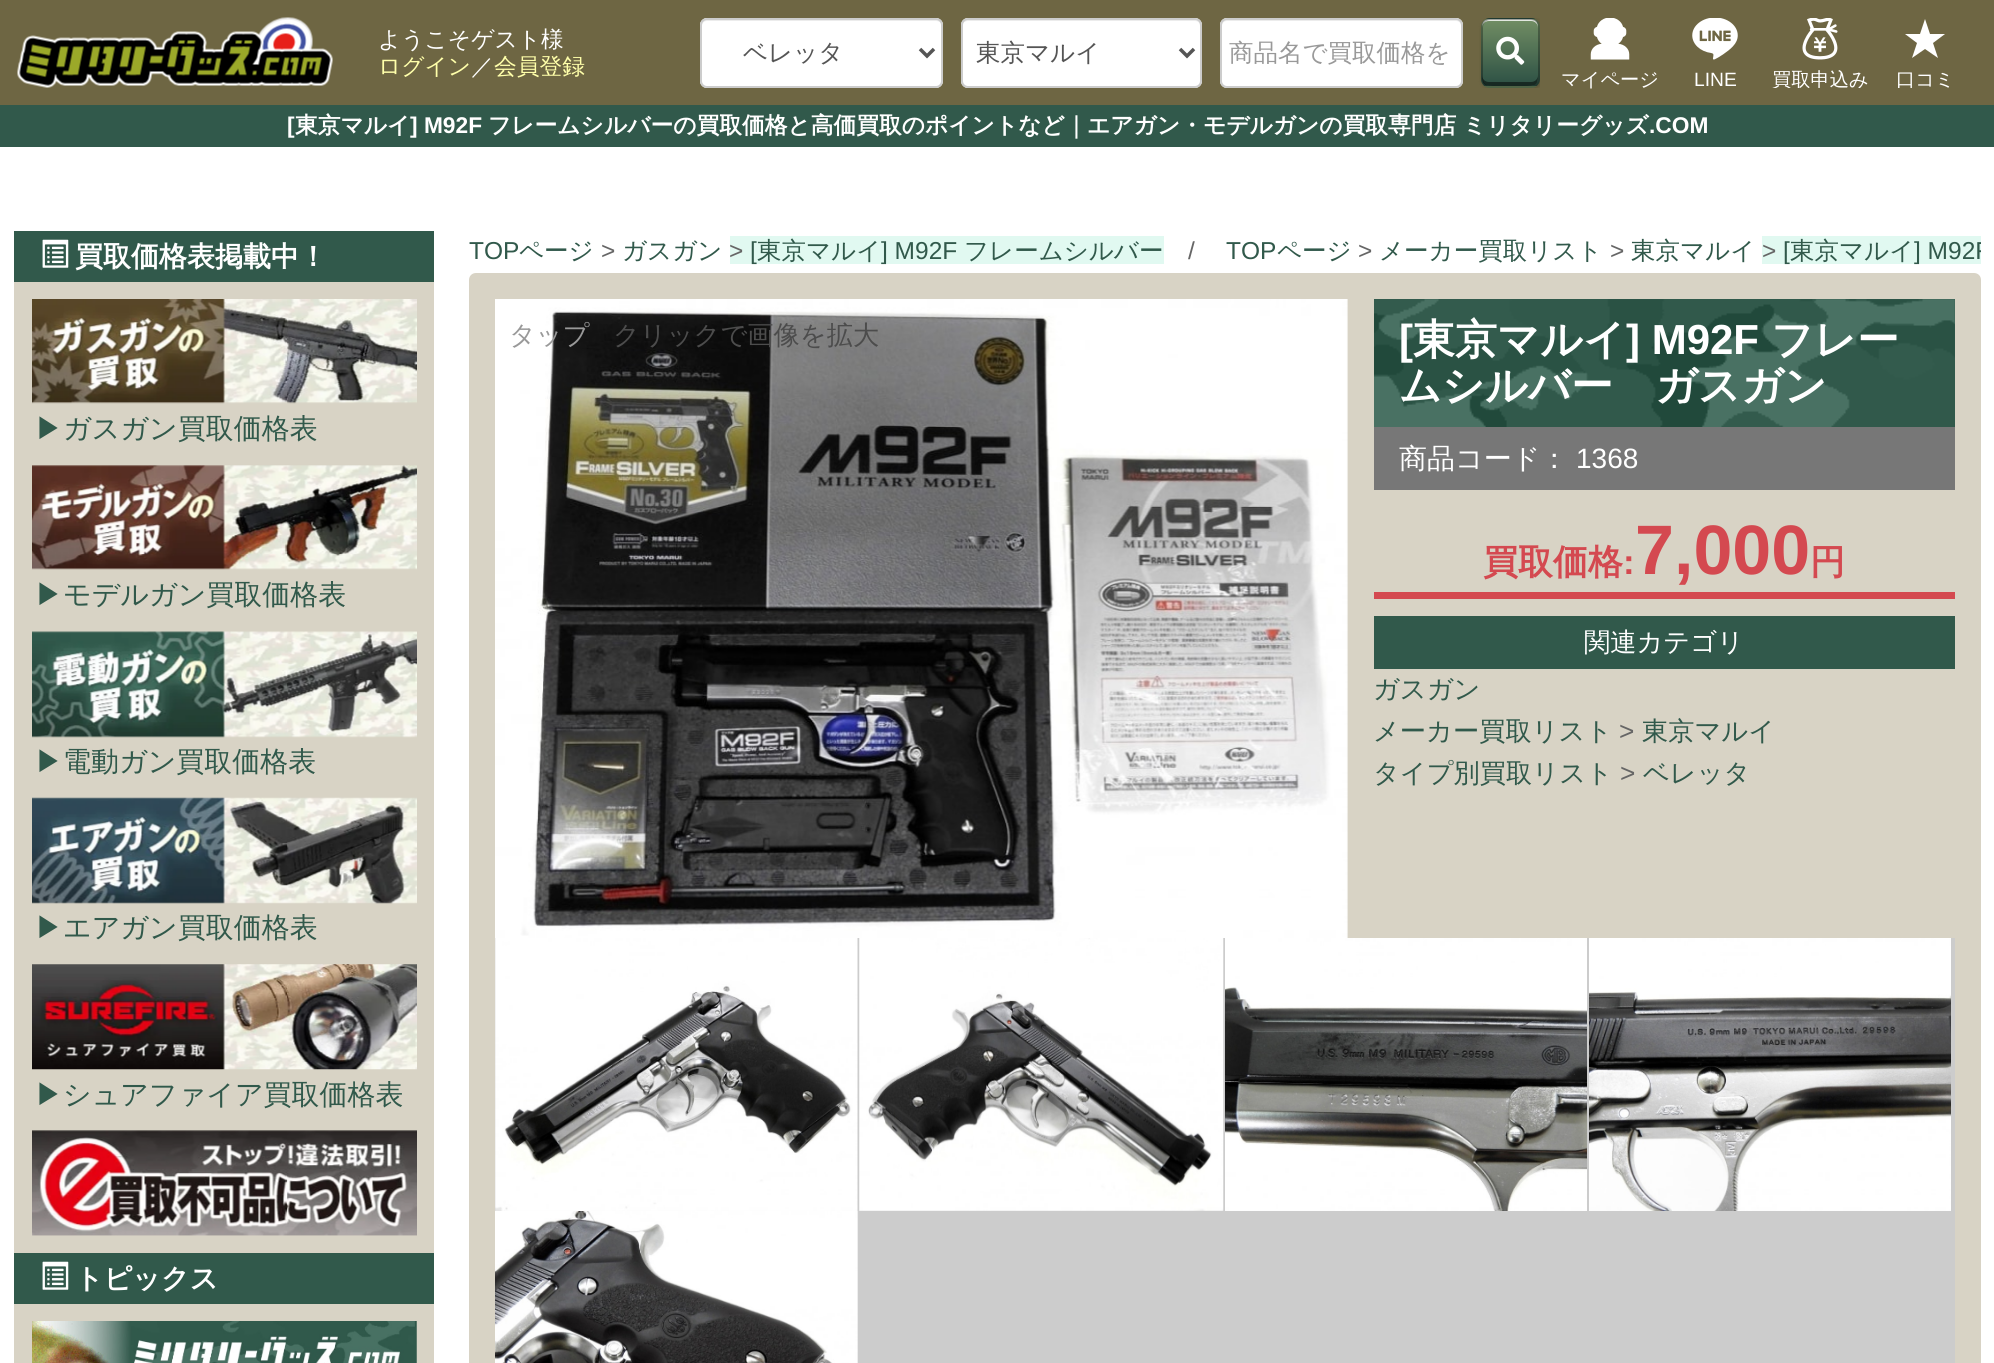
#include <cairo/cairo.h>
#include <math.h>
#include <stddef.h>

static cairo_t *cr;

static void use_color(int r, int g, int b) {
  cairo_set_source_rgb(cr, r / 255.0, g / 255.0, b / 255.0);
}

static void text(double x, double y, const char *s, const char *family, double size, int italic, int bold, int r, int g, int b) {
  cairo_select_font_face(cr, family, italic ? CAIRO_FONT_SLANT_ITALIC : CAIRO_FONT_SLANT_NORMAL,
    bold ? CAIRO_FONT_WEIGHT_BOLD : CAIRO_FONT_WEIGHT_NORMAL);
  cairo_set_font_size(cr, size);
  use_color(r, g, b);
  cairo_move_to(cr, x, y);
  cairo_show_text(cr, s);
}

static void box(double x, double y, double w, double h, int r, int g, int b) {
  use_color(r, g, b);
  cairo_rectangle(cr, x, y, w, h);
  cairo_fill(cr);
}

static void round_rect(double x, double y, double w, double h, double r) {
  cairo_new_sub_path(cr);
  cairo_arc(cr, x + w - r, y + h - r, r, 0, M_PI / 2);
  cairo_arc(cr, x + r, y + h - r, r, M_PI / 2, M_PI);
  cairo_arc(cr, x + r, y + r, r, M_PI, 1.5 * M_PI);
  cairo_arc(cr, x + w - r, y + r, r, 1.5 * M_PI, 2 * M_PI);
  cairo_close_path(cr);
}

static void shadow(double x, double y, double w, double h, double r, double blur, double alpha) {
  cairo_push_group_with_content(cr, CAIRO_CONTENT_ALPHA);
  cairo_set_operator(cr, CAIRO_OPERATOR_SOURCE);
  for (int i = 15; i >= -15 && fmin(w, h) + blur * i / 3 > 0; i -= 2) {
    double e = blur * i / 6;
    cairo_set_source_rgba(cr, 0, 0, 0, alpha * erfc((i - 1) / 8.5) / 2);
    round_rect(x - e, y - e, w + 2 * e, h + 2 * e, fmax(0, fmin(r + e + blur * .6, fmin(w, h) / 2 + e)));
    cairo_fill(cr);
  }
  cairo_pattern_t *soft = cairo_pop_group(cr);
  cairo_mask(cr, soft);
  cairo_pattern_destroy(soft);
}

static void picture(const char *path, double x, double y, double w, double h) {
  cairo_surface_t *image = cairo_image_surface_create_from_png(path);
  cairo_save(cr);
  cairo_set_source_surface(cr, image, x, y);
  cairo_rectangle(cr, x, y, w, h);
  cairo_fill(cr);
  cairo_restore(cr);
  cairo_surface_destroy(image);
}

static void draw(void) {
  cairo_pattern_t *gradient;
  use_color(255, 255, 255);
  cairo_paint(cr);
  box(0, 0, 1994, 105, 110, 102, 67);
  picture("img_01.png", 17, 17, 316, 71);
  use_color(255, 255, 255);
  round_rect(700, 18, 243, 70, 7);
  cairo_fill(cr);
  use_color(236, 236, 236);
  cairo_new_path(cr);
  cairo_move_to(cr, 707, 21);
  cairo_line_to(cr, 936, 21);
  cairo_curve_to(cr, 939, 21, 942, 23, 942, 26);
  cairo_curve_to(cr, 942, 23, 942, 20, 938, 19);
  cairo_line_to(cr, 706, 19);
  cairo_curve_to(cr, 702, 20, 702, 23, 702, 26);
  cairo_curve_to(cr, 702, 23, 704, 21, 707, 21);
  cairo_close_path(cr);
  cairo_fill(cr);
  round_rect(701, 19, 241, 68, 6);
  use_color(204, 204, 204);
  cairo_stroke(cr);
  cairo_new_path(cr);
  cairo_move_to(cr, 920, 49);
  cairo_line_to(cr, 927, 56);
  cairo_line_to(cr, 934, 49);
  use_color(85, 85, 85);
  cairo_set_line_width(cr, 3.5);
  cairo_stroke(cr);
  use_color(255, 255, 255);
  round_rect(961, 18, 241, 70, 7);
  cairo_fill(cr);
  use_color(236, 236, 236);
  cairo_new_path(cr);
  cairo_move_to(cr, 968, 21);
  cairo_line_to(cr, 1195, 21);
  cairo_curve_to(cr, 1198, 21, 1200, 23, 1200, 26);
  cairo_line_to(cr, 1200, 82);
  cairo_line_to(cr, 1200, 85);
  cairo_curve_to(cr, 1200, 84, 1201, 82, 1201, 81);
  cairo_line_to(cr, 1201, 24);
  cairo_curve_to(cr, 1201, 21, 1199, 19, 1196, 19);
  cairo_line_to(cr, 968, 19);
  cairo_curve_to(cr, 966, 19, 963, 21, 963, 23);
  cairo_curve_to(cr, 964, 22, 966, 21, 968, 21);
  cairo_close_path(cr);
  cairo_fill(cr);
  round_rect(962, 19, 239, 68, 6);
  use_color(204, 204, 204);
  cairo_set_line_width(cr, 2);
  cairo_stroke(cr);
  cairo_new_path(cr);
  cairo_move_to(cr, 1180, 49);
  cairo_line_to(cr, 1187, 56);
  cairo_line_to(cr, 1194, 49);
  use_color(85, 85, 85);
  cairo_set_line_width(cr, 3.5);
  cairo_stroke(cr);
  use_color(255, 255, 255);
  round_rect(1220, 18, 243, 70, 7);
  cairo_fill(cr);
  use_color(236, 236, 236);
  cairo_new_path(cr);
  cairo_move_to(cr, 1227, 21);
  cairo_line_to(cr, 1456, 21);
  cairo_curve_to(cr, 1459, 21, 1461, 23, 1461, 26);
  cairo_curve_to(cr, 1461, 23, 1461, 20, 1457, 19);
  cairo_line_to(cr, 1226, 19);
  cairo_curve_to(cr, 1222, 20, 1222, 23, 1222, 26);
  cairo_curve_to(cr, 1222, 23, 1224, 21, 1227, 21);
  cairo_close_path(cr);
  cairo_fill(cr);
  round_rect(1221, 19, 241, 68, 6);
  use_color(204, 204, 204);
  cairo_set_line_width(cr, 2);
  cairo_stroke(cr);
  cairo_save(cr);
  cairo_rectangle(cr, 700, 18, 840, 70);
  cairo_clip(cr);
  use_color(0, 0, 0);
  shadow(1482, 19, 60, 70, 9, 2, 0.2);
  cairo_restore(cr);
  cairo_save(cr);
  round_rect(1481, 18, 59, 70, 9);
  cairo_clip(cr);
  gradient = cairo_pattern_create_linear(1510, -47, 1510, 19);
  cairo_pattern_add_color_stop_rgba(gradient, 0, 0.447, 0.557, 0.392, 1);
  cairo_pattern_add_color_stop_rgba(gradient, 1, 0.173, 0.314, 0.267, 1);
  cairo_set_source(cr, gradient);
  cairo_pattern_destroy(gradient);
  cairo_rectangle(cr, 1481, 18, 59, 1);
  cairo_fill(cr);
  gradient = cairo_pattern_create_linear(1510, 19, 1510, 86);
  cairo_pattern_add_color_stop_rgba(gradient, 0, 0.447, 0.557, 0.392, 1);
  cairo_pattern_add_color_stop_rgba(gradient, 1, 0.173, 0.314, 0.267, 1);
  cairo_set_source(cr, gradient);
  cairo_pattern_destroy(gradient);
  cairo_rectangle(cr, 1481, 19, 59, 67);
  cairo_fill(cr);
  gradient = cairo_pattern_create_linear(1510, 86, 1510, 152);
  cairo_pattern_add_color_stop_rgba(gradient, 0, 0.447, 0.557, 0.392, 1);
  cairo_pattern_add_color_stop_rgba(gradient, 1, 0.173, 0.314, 0.267, 1);
  cairo_set_source(cr, gradient);
  cairo_pattern_destroy(gradient);
  cairo_rectangle(cr, 1481, 86, 59, 2);
  cairo_fill(cr);
  cairo_restore(cr);
  cairo_set_source_rgba(cr, 0, 0, 0, 0.5);
  cairo_new_path(cr);
  cairo_move_to(cr, 1482, 75);
  cairo_curve_to(cr, 1482, 86, 1485, 86, 1496, 86);
  cairo_line_to(cr, 1524, 86);
  cairo_curve_to(cr, 1535, 86, 1538, 86, 1538, 75);
  cairo_curve_to(cr, 1538, 79, 1535, 82, 1531, 82);
  cairo_line_to(cr, 1489, 82);
  cairo_curve_to(cr, 1485, 82, 1482, 79, 1482, 75);
  cairo_close_path(cr);
  cairo_fill(cr);
  cairo_set_source_rgba(cr, 1, 1, 1, 0.8);
  cairo_new_path(cr);
  cairo_move_to(cr, 1489, 21);
  cairo_line_to(cr, 1531, 21);
  cairo_curve_to(cr, 1535, 21, 1538, 24, 1538, 28);
  cairo_curve_to(cr, 1538, 18, 1532, 19, 1524, 19);
  cairo_line_to(cr, 1496, 19);
  cairo_curve_to(cr, 1488, 19, 1482, 18, 1482, 28);
  cairo_curve_to(cr, 1482, 24, 1485, 21, 1489, 21);
  cairo_close_path(cr);
  cairo_fill(cr);
  round_rect(1482, 19, 57, 68, 8);
  cairo_set_source_rgba(cr, 0, 0, 0, 0.3);
  cairo_stroke(cr);
  picture("img_02.png", 1496, 36, 29, 29);
  picture("img_03.png", 1590, 18, 40, 42);
  picture("img_04.png", 1692, 18, 46, 42);
  picture("img_05.png", 1802, 18, 36, 42);
  use_color(255, 255, 255);
  cairo_new_path(cr);
  cairo_move_to(cr, 1930, 34);
  cairo_line_to(cr, 1945, 34);
  cairo_line_to(cr, 1933, 43);
  cairo_line_to(cr, 1938, 58);
  cairo_line_to(cr, 1925, 49);
  cairo_line_to(cr, 1912, 58);
  cairo_line_to(cr, 1917, 43);
  cairo_line_to(cr, 1905, 34);
  cairo_line_to(cr, 1920, 34);
  cairo_line_to(cr, 1925, 19);
  cairo_close_path(cr);
  cairo_fill(cr);
  box(0, 105, 1994, 42, 49, 89, 75);
  box(14, 282, 420, 971, 216, 211, 197);
  box(14, 231, 420, 51, 49, 89, 75);
  picture("img_06.png", 42, 239, 27, 29);
  picture("img_07.png", 32, 299, 385, 105);
  picture("img_08.png", 32, 465, 385, 105);
  picture("img_09.png", 32, 631, 385, 107);
  picture("img_10.png", 32, 797, 385, 107);
  picture("img_11.png", 32, 964, 385, 106);
  picture("img_12.png", 32, 1130, 385, 106);
  box(14, 1304, 420, 59, 216, 211, 197);
  box(14, 1253, 420, 51, 49, 89, 75);
  picture("img_06.png", 42, 1261, 27, 29);
  picture("img_13.png", 32, 1321, 385, 42);
  box(730, 236, 434, 28, 225, 249, 241);
  box(1762, 236, 219, 28, 225, 249, 241);
  use_color(216, 211, 197);
  cairo_new_path(cr);
  cairo_move_to(cr, 476, 273);
  cairo_line_to(cr, 1974, 273);
  cairo_curve_to(cr, 1978, 273, 1981, 276, 1981, 280);
  cairo_line_to(cr, 1981, 1363);
  cairo_line_to(cr, 469, 1363);
  cairo_line_to(cr, 469, 280);
  cairo_curve_to(cr, 469, 276, 472, 273, 476, 273);
  cairo_close_path(cr);
  cairo_fill(cr);
  picture("img_14.png", 495, 299, 853, 639);
  box(1374, 299, 581, 128, 49, 89, 75);
  picture("img_15.png", 1374, 299, 581, 128);
  box(1374, 427, 581, 63, 119, 119, 119);
  box(1374, 592, 581, 7, 212, 73, 80);
  box(1374, 616, 581, 53, 49, 89, 75);
  box(495, 938, 1460, 425, 204, 204, 204);
  picture("img_16.png", 495, 938, 363, 273);
  picture("img_17.png", 859, 938, 365, 273);
  picture("img_18.png", 1225, 938, 362, 273);
  picture("img_19.png", 1589, 938, 362, 273);
  picture("img_20.png", 495, 1211, 363, 152);
  text(378, 47, "ようこそゲスト様", "WenQuanYi Zen Hei Medium", 22.75, 0, 0, 255, 255, 255);
  text(378, 74, "ログイン", "WenQuanYi Zen Hei Medium", 22.75, 0, 0, 255, 255, 170);
  text(471, 74, "／", "WenQuanYi Zen Hei Medium", 22.75, 0, 0, 255, 255, 255);
  text(494, 74, "会員登録", "WenQuanYi Zen Hei Medium", 22.75, 0, 0, 255, 255, 170);
  text(743, 61, "ベレッタ", "WenQuanYi Zen Hei Medium", 24.5, 0, 0, 85, 85, 85);
  text(976, 61, "東京マルイ", "WenQuanYi Zen Hei Medium", 24.5, 0, 0, 85, 85, 85);
  text(1229, 61, "商品名で買取価格を", "WenQuanYi Zen Hei Medium", 24.5, 0, 0, 153, 153, 153);
  text(1561, 86, "マイページ", "WenQuanYi Zen Hei Medium", 19.25, 0, 0, 255, 255, 255);
  text(1694, 86, "LINE", "Liberation Sans", 19.25, 0, 0, 255, 255, 255);
  cairo_save(cr);
  cairo_rectangle(cr, 1768, 18, 105, 70);
  cairo_clip(cr);
  text(1772, 86, "買取申込み", "WenQuanYi Zen Hei Medium", 19.25, 0, 0, 255, 255, 255);
  cairo_restore(cr);
  cairo_save(cr);
  cairo_rectangle(cr, 1873, 18, 105, 70);
  cairo_clip(cr);
  text(1896, 86, "口コミ", "WenQuanYi Zen Hei Medium", 19.25, 0, 0, 255, 255, 255);
  cairo_restore(cr);
  text(287, 133, "[", "Liberation Sans", 22.75, 0, 1, 255, 255, 255);
  text(295, 133, "東京マルイ", "WenQuanYi Zen Hei", 22.75, 0, 1, 255, 255, 255);
  text(410, 133, "] M92F", "Liberation Sans", 22.75, 0, 1, 255, 255, 255);
  text(488, 133, "フレームシルバーの買取価格と高価買取のポイントなど｜エアガン・モデルガンの買取専門店", "WenQuanYi Zen Hei", 22.75, 0, 1, 255, 255, 255);
  text(1463, 133, "ミリタリーグッズ", "WenQuanYi Zen Hei", 22.75, 0, 1, 255, 255, 255);
  text(1649, 133, ".COM", "Liberation Sans", 22.75, 0, 1, 255, 255, 255);
  text(75, 266, "買取価格表掲載中！", "WenQuanYi Zen Hei", 28, 0, 1, 255, 255, 255);
  text(35, 438, "▶ガスガン買取価格表", "WenQuanYi Zen Hei Medium", 28, 0, 0, 49, 89, 75);
  text(35, 604, "▶モデルガン買取価格表", "WenQuanYi Zen Hei Medium", 28, 0, 0, 49, 89, 75);
  text(35, 771, "▶電動ガン買取価格表", "WenQuanYi Zen Hei Medium", 28, 0, 0, 49, 89, 75);
  text(35, 937, "▶エアガン買取価格表", "WenQuanYi Zen Hei Medium", 28, 0, 0, 49, 89, 75);
  text(35, 1104, "▶シュアファイア買取価格表", "WenQuanYi Zen Hei Medium", 28, 0, 0, 49, 89, 75);
  text(75, 1288, "トピックス", "WenQuanYi Zen Hei", 28, 0, 1, 255, 255, 255);
  text(469, 259, "TOP", "Liberation Sans", 24.5, 0, 0, 49, 89, 75);
  text(519, 259, "ページ", "WenQuanYi Zen Hei Medium", 24.5, 0, 0, 49, 89, 75);
  text(601, 259, ">", "Liberation Sans", 24.5, 0, 0, 102, 102, 102);
  text(622, 259, "ガスガン", "WenQuanYi Zen Hei Medium", 24.5, 0, 0, 49, 89, 75);
  text(729, 259, ">", "Liberation Sans", 24.5, 0, 0, 102, 102, 102);
  text(750, 259, "[", "Liberation Sans", 24.5, 0, 0, 49, 89, 75);
  text(757, 259, "東京マルイ", "WenQuanYi Zen Hei Medium", 24.5, 0, 0, 49, 89, 75);
  text(881, 259, "] M92F", "Liberation Sans", 24.5, 0, 0, 49, 89, 75);
  text(964, 259, "フレームシルバー", "WenQuanYi Zen Hei Medium", 24.5, 0, 0, 49, 89, 75);
  text(1188, 259, "/", "Liberation Sans", 24.5, 0, 0, 102, 102, 102);
  text(1226, 259, "TOP", "Liberation Sans", 24.5, 0, 0, 49, 89, 75);
  text(1277, 259, "ページ", "WenQuanYi Zen Hei Medium", 24.5, 0, 0, 49, 89, 75);
  text(1358, 259, ">", "Liberation Sans", 24.5, 0, 0, 102, 102, 102);
  text(1379, 259, "メーカー買取リスト", "WenQuanYi Zen Hei Medium", 24.5, 0, 0, 49, 89, 75);
  text(1610, 259, ">", "Liberation Sans", 24.5, 0, 0, 102, 102, 102);
  text(1631, 259, "東京マルイ", "WenQuanYi Zen Hei Medium", 24.5, 0, 0, 49, 89, 75);
  text(1762, 259, ">", "Liberation Sans", 24.5, 0, 0, 102, 102, 102);
  text(1783, 259, "[", "Liberation Sans", 24.5, 0, 0, 49, 89, 75);
  text(1790, 259, "東京マルイ", "WenQuanYi Zen Hei Medium", 24.5, 0, 0, 49, 89, 75);
  cairo_save(cr);
  cairo_rectangle(cr, 469, 231, 1512, 42);
  cairo_clip(cr);
  text(1914, 259, "] M92F", "Liberation Sans", 24.5, 0, 0, 49, 89, 75);
  cairo_restore(cr);
  text(509, 344, "タップ", "WenQuanYi Zen Hei Medium", 26.25, 0, 0, 153, 153, 153);
  text(613, 344, "クリックで画像を拡大", "WenQuanYi Zen Hei Medium", 26.25, 0, 0, 76, 76, 76);
  text(1399, 354, "[", "Liberation Sans", 42, 0, 1, 255, 255, 255);
  text(1413, 354, "東京マルイ", "WenQuanYi Zen Hei", 42, 0, 1, 255, 255, 255);
  text(1626, 354, "] M92F", "Liberation Sans", 42, 0, 1, 255, 255, 255);
  text(1771, 354, "フレー", "WenQuanYi Zen Hei", 42, 0, 1, 255, 255, 255);
  text(1399, 400, "ムシルバー", "WenQuanYi Zen Hei", 42, 0, 1, 255, 255, 255);
  text(1655, 400, "ガスガン", "WenQuanYi Zen Hei", 42, 0, 1, 255, 255, 255);
  text(1399, 468, "商品コード：", "WenQuanYi Zen Hei Medium", 28, 0, 0, 255, 255, 255);
  text(1576, 468, "1368", "Liberation Sans", 28, 0, 0, 255, 255, 255);
  text(1483, 574, "買取価格", "WenQuanYi Zen Hei", 35, 0, 1, 212, 73, 80);
  text(1623, 574, ":", "Liberation Sans", 35, 0, 1, 212, 73, 80);
  text(1635, 574, "7,000", "Liberation Sans", 70, 0, 1, 212, 73, 80);
  text(1810, 574, "円", "WenQuanYi Zen Hei", 35, 0, 1, 212, 73, 80);
  text(1584, 651, "関連カテゴリ", "WenQuanYi Zen Hei Medium", 26.25, 0, 0, 255, 255, 255);
  text(1373, 698, "ガスガン", "WenQuanYi Zen Hei Medium", 26.25, 0, 0, 49, 89, 75);
  text(1373, 740, "メーカー買取リスト", "WenQuanYi Zen Hei Medium", 26.25, 0, 0, 49, 89, 75);
  text(1619, 740, ">", "Liberation Sans", 26.25, 0, 0, 102, 102, 102);
  text(1642, 740, "東京マルイ", "WenQuanYi Zen Hei Medium", 26.25, 0, 0, 49, 89, 75);
  text(1373, 782, "タイプ別買取リスト", "WenQuanYi Zen Hei Medium", 26.25, 0, 0, 49, 89, 75);
  text(1620, 782, ">", "Liberation Sans", 26.25, 0, 0, 102, 102, 102);
  text(1643, 782, "ベレッタ", "WenQuanYi Zen Hei Medium", 26.25, 0, 0, 49, 89, 75);
}

int main(void) {
  cairo_surface_t *surface = cairo_image_surface_create(CAIRO_FORMAT_RGB24, 1994, 1363);
  cr = cairo_create(surface);
  cairo_font_options_t *options = cairo_font_options_create();
  cairo_font_options_set_hint_metrics(options, CAIRO_HINT_METRICS_OFF);
  cairo_font_options_set_hint_style(options, CAIRO_HINT_STYLE_NONE);
  cairo_set_font_options(cr, options);
  cairo_set_miter_limit(cr, 4);
  draw();
  cairo_surface_write_to_png(surface, "out.png");
  cairo_font_options_destroy(options);
  cairo_destroy(cr);
  cairo_surface_destroy(surface);
  return 0;
}
